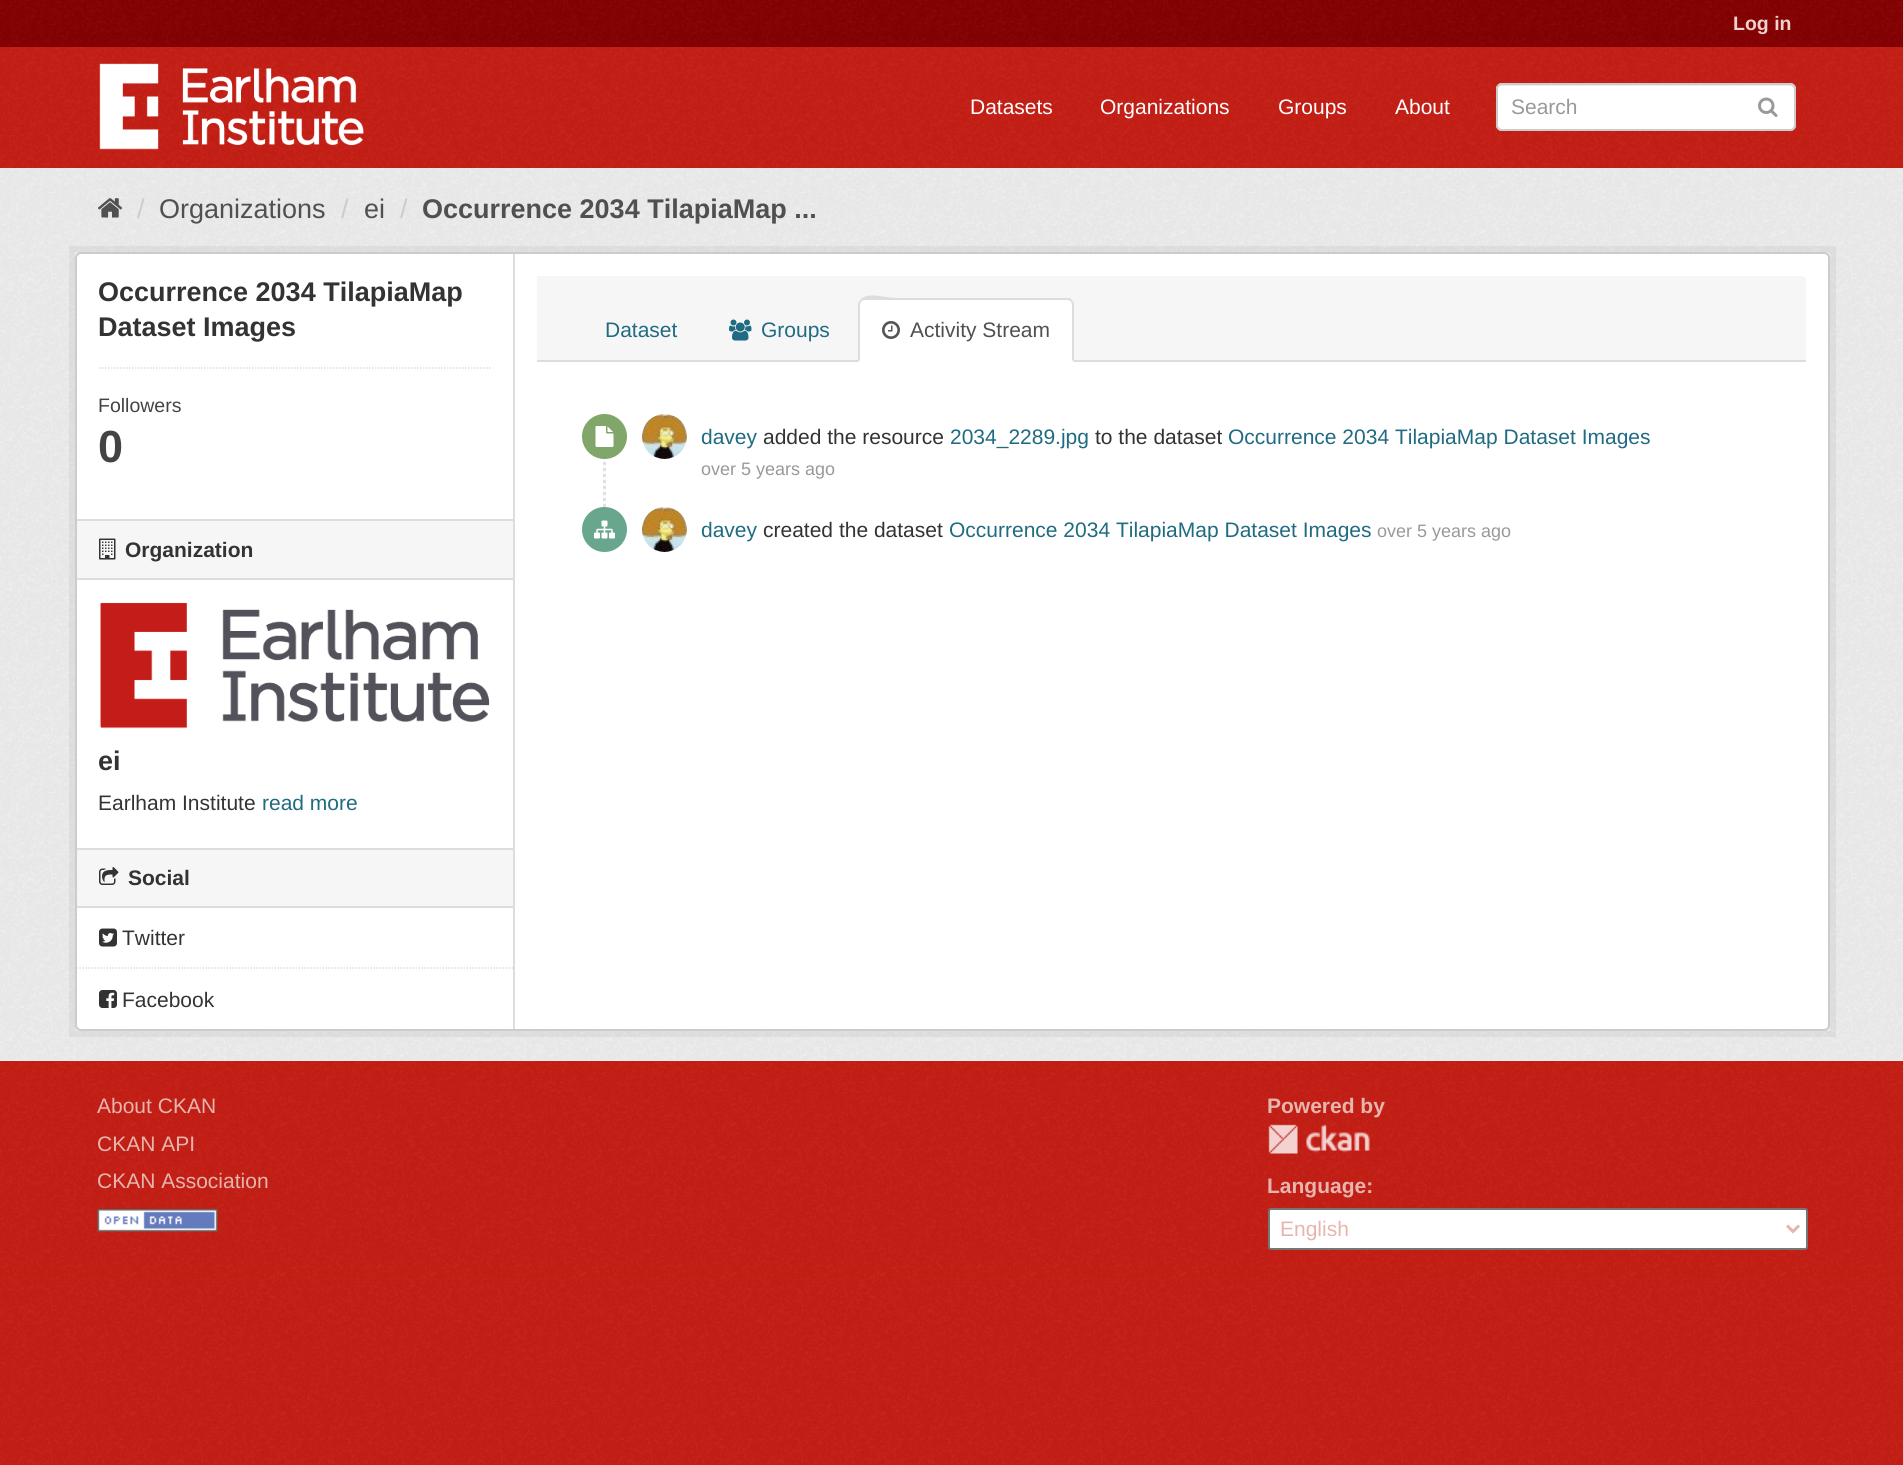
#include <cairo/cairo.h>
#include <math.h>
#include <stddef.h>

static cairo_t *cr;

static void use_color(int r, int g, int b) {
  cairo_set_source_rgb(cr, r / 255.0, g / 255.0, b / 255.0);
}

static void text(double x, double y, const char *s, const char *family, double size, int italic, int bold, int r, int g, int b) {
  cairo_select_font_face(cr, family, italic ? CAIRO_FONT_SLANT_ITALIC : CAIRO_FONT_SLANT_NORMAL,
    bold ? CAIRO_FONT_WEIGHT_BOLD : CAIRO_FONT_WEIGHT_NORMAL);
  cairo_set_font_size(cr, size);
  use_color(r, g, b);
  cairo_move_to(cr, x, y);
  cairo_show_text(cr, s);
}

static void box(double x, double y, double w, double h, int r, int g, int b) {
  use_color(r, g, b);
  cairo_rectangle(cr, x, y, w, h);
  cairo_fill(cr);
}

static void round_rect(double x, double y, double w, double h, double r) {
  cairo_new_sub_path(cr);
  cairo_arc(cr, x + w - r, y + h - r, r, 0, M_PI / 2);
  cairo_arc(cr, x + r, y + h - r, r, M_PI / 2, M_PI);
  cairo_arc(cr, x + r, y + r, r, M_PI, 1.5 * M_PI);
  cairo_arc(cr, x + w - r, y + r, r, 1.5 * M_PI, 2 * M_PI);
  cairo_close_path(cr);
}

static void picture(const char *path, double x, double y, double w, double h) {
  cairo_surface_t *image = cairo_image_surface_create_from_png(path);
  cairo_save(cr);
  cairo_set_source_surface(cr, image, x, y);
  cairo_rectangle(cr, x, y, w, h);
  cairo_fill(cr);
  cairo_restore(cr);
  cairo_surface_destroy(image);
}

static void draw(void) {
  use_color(198, 31, 22);
  cairo_paint(cr);
  picture("img_01.png", 0, 1280, 1903, 185);
  box(0, 0, 1903, 47, 133, 0, 1);
  picture("img_02.png", 0, 0, 1903, 46);
  picture("img_03.png", 0, 47, 1903, 121);
  picture("img_04.png", 99, 63, 265, 87);
  use_color(255, 255, 255);
  round_rect(1496, 83, 300, 48, 6);
  cairo_fill(cr);
  use_color(236, 236, 236);
  cairo_new_path(cr);
  cairo_move_to(cr, 1502, 86);
  cairo_line_to(cr, 1790, 86);
  cairo_curve_to(cr, 1792, 86, 1794, 88, 1794, 90);
  cairo_line_to(cr, 1794, 89);
  cairo_curve_to(cr, 1794, 86, 1792, 84, 1789, 84);
  cairo_line_to(cr, 1502, 84);
  cairo_curve_to(cr, 1499, 84, 1497, 86, 1497, 89);
  cairo_line_to(cr, 1497, 90);
  cairo_curve_to(cr, 1497, 88, 1499, 86, 1502, 86);
  cairo_close_path(cr);
  cairo_fill(cr);
  round_rect(1497, 84, 298, 46, 5);
  use_color(204, 204, 204);
  cairo_stroke(cr);
  picture("img_05.png", 1758, 97, 20, 20);
  box(0, 168, 1903, 893, 238, 238, 238);
  picture("img_06.png", 0, 168, 1903, 892);
  picture("img_07.png", 98, 198, 25, 20);
  cairo_rectangle(cr, 72, 249, 1761, 785);
  cairo_set_source_rgba(cr, 0, 0, 0, 0.05);
  cairo_set_line_width(cr, 6);
  cairo_stroke(cr);
  use_color(255, 255, 255);
  round_rect(76, 253, 1753, 777, 5);
  cairo_fill_preserve(cr);
  use_color(204, 204, 204);
  cairo_set_line_width(cr, 2);
  cairo_stroke(cr);
  cairo_new_path(cr);
  cairo_move_to(cr, 99, 368);
  cairo_line_to(cr, 490.5, 368);
  use_color(221, 221, 221);
  cairo_set_line_width(cr, 1.5);
  cairo_set_dash(cr, (double[]){1.5, 1.5}, 2, 0);
  cairo_stroke(cr);
  box(77, 521, 436, 57, 246, 246, 246);
  box(77, 519, 436, 2, 221, 221, 221);
  box(77, 578, 436, 2, 221, 221, 221);
  picture("img_08.png", 99, 538, 17, 22);
  picture("img_09.png", 100, 602, 390, 127);
  box(77, 850, 436, 56, 246, 246, 246);
  box(77, 848, 436, 2, 221, 221, 221);
  box(77, 906, 436, 2, 221, 221, 221);
  picture("img_10.png", 99, 867, 20, 18);
  cairo_new_path(cr);
  cairo_move_to(cr, 76.5, 968);
  cairo_line_to(cr, 513, 968);
  cairo_stroke(cr);
  picture("img_11.png", 99, 928, 18, 19);
  picture("img_12.png", 99, 990, 18, 18);
  box(513, 254, 2, 775, 221, 221, 221);
  use_color(246, 246, 246);
  cairo_new_path(cr);
  cairo_move_to(cr, 537, 276);
  cairo_line_to(cr, 1801, 276);
  cairo_curve_to(cr, 1804, 276, 1806, 278, 1806, 281);
  cairo_line_to(cr, 1806, 362);
  cairo_line_to(cr, 537, 362);
  cairo_close_path(cr);
  cairo_fill(cr);
  box(537, 360, 1269, 2, 221, 221, 221);
  picture("img_13.png", 729, 319, 23, 22);
  use_color(255, 255, 255);
  cairo_new_path(cr);
  cairo_move_to(cr, 864, 299);
  cairo_line_to(cr, 1068, 299);
  cairo_curve_to(cr, 1071.5, 299, 1074, 301.5, 1074, 305);
  cairo_line_to(cr, 1074, 362);
  cairo_line_to(cr, 858, 362);
  cairo_line_to(cr, 858, 305);
  cairo_curve_to(cr, 858, 301.5, 860.5, 299, 864, 299);
  cairo_close_path(cr);
  cairo_fill(cr);
  use_color(221, 221, 221);
  cairo_new_path(cr);
  cairo_move_to(cr, 864, 300);
  cairo_curve_to(cr, 863, 300, 862, 301, 861, 302);
  cairo_line_to(cr, 860, 300);
  cairo_curve_to(cr, 868, 291, 884, 298, 897, 298);
  cairo_line_to(cr, 1070, 298);
  cairo_line_to(cr, 1072, 300);
  cairo_line_to(cr, 1071, 302);
  cairo_curve_to(cr, 1070, 301, 1069, 300, 1068, 300);
  cairo_close_path(cr);
  cairo_fill(cr);
  cairo_new_path(cr);
  cairo_move_to(cr, 1074, 362);
  cairo_line_to(cr, 1074, 304);
  cairo_curve_to(cr, 1074, 303, 1073, 301, 1072, 300);
  cairo_line_to(cr, 1071, 302);
  cairo_line_to(cr, 1072, 304);
  cairo_line_to(cr, 1072, 360);
  cairo_close_path(cr);
  cairo_fill(cr);
  cairo_new_path(cr);
  cairo_move_to(cr, 858, 362);
  cairo_line_to(cr, 860, 360);
  cairo_line_to(cr, 860, 304);
  cairo_line_to(cr, 861, 302);
  cairo_line_to(cr, 860, 300);
  cairo_curve_to(cr, 859, 301, 858, 303, 858, 304);
  cairo_close_path(cr);
  cairo_fill(cr);
  picture("img_14.png", 882, 321, 18, 18);
  picture("img_15.png", 603, 414, 3, 94);
  use_color(129, 166, 105);
  cairo_arc(cr, 604.5, 436.5, 22.5, 0, 2 * M_PI);
  cairo_fill(cr);
  picture("img_16.png", 595, 426, 19, 21);
  picture("img_17.png", 642, 414, 45, 45);
  use_color(105, 166, 142);
  cairo_arc(cr, 604.5, 529.5, 22.5, 0, 2 * M_PI);
  cairo_fill(cr);
  picture("img_18.png", 594, 520, 21, 19);
  picture("img_19.png", 642, 507, 45, 45);
  picture("img_20.png", 0, 1061, 1903, 218);
  picture("img_21.png", 97, 1209, 121, 23);
  picture("img_22.png", 1268, 1124, 102, 30);
  use_color(255, 255, 255);
  round_rect(1269, 1209, 538, 40, 2);
  cairo_fill_preserve(cr);
  use_color(118, 118, 118);
  cairo_set_line_width(cr, 2);
  cairo_set_dash(cr, NULL, 0, 0);
  cairo_stroke(cr);
  cairo_new_path(cr);
  cairo_move_to(cr, 1787, 1225.5);
  cairo_line_to(cr, 1793, 1231.5);
  cairo_line_to(cr, 1799, 1225.5);
  use_color(230, 181, 173);
  cairo_set_line_width(cr, 3);
  cairo_stroke(cr);
  text(1733, 30, "Log in", "Liberation Sans", 19.5, 0, 1, 240, 209, 204);
  text(970, 114, "Datasets", "Liberation Sans", 21, 0, 0, 255, 255, 255);
  text(1100, 114, "Organizations", "Liberation Sans", 21, 0, 0, 255, 255, 255);
  text(1278, 114, "Groups", "Liberation Sans", 21, 0, 0, 255, 255, 255);
  text(1395, 114, "About", "Liberation Sans", 21, 0, 0, 255, 255, 255);
  text(1511, 114, "Search", "Liberation Sans", 21, 0, 0, 153, 153, 153);
  text(137, 218, "/", "Liberation Sans", 27, 0, 0, 204, 204, 204);
  text(159, 218, "Organizations", "Liberation Sans", 27, 0, 0, 80, 80, 80);
  text(341, 218, "/", "Liberation Sans", 27, 0, 0, 204, 204, 204);
  text(364, 218, "ei", "Liberation Sans", 27, 0, 0, 80, 80, 80);
  text(400, 218, "/", "Liberation Sans", 27, 0, 0, 204, 204, 204);
  text(422, 218, "Occurrence 2034 TilapiaMap ...", "Liberation Sans", 27, 0, 1, 80, 80, 80);
  text(98, 301, "Occurrence 2034 TilapiaMap", "Liberation Sans", 27, 0, 1, 51, 51, 51);
  text(98, 336, "Dataset Images", "Liberation Sans", 27, 0, 1, 51, 51, 51);
  text(98, 412, "Followers", "Liberation Sans", 19.5, 0, 0, 68, 68, 68);
  text(98, 462, "0", "Liberation Sans", 45, 0, 1, 68, 68, 68);
  text(125, 557, "Organization", "Liberation Sans", 21, 0, 1, 51, 51, 51);
  text(98, 770, "ei", "Liberation Sans", 27, 0, 1, 51, 51, 51);
  text(98, 810, "Earlham Institute", "Liberation Sans", 21, 0, 0, 51, 51, 51);
  text(262, 810, "read more", "Liberation Sans", 21, 0, 0, 32, 107, 130);
  text(128, 885, "Social", "Liberation Sans", 21, 0, 1, 51, 51, 51);
  text(122, 945, "Twitter", "Liberation Sans", 21, 0, 0, 51, 51, 51);
  text(122, 1007, "Facebook", "Liberation Sans", 21, 0, 0, 51, 51, 51);
  text(605, 337, "Dataset", "Liberation Sans", 21, 0, 0, 32, 107, 130);
  text(761, 337, "Groups", "Liberation Sans", 21, 0, 0, 32, 107, 130);
  text(910, 337, "Activity Stream", "Liberation Sans", 21, 0, 0, 80, 80, 80);
  text(701, 444, "davey", "Liberation Sans", 21, 0, 0, 32, 107, 130);
  text(763, 444, "added the resource", "Liberation Sans", 21, 0, 0, 51, 51, 51);
  text(950, 444, "2034_2289.jpg", "Liberation Sans", 21, 0, 0, 32, 107, 130);
  text(1095, 444, "to the dataset", "Liberation Sans", 21, 0, 0, 51, 51, 51);
  text(1228, 444, "Occurrence 2034 TilapiaMap Dataset Images", "Liberation Sans", 21, 0, 0, 32, 107, 130);
  text(701, 475, "over 5 years ago", "Liberation Sans", 18, 0, 0, 153, 153, 153);
  text(701, 537, "davey", "Liberation Sans", 21, 0, 0, 32, 107, 130);
  text(763, 537, "created the dataset", "Liberation Sans", 21, 0, 0, 51, 51, 51);
  text(949, 537, "Occurrence 2034 TilapiaMap Dataset Images", "Liberation Sans", 21, 0, 0, 32, 107, 130);
  text(1377, 537, "over 5 years ago", "Liberation Sans", 18, 0, 0, 153, 153, 153);
  text(97, 1113, "About CKAN", "Liberation Sans", 21, 0, 0, 230, 181, 173);
  text(97, 1151, "CKAN API", "Liberation Sans", 21, 0, 0, 230, 181, 173);
  text(97, 1188, "CKAN Association", "Liberation Sans", 21, 0, 0, 230, 181, 173);
  text(1267, 1113, "Powered by", "Liberation Sans", 21, 0, 1, 230, 181, 173);
  text(1267, 1193, "Language:", "Liberation Sans", 21, 0, 1, 230, 181, 173);
  text(1280, 1236, "English", "Liberation Sans", 21, 0, 0, 230, 181, 173);
}

int main(void) {
  cairo_surface_t *surface = cairo_image_surface_create(CAIRO_FORMAT_RGB24, 1903, 1465);
  cr = cairo_create(surface);
  cairo_font_options_t *options = cairo_font_options_create();
  cairo_font_options_set_hint_metrics(options, CAIRO_HINT_METRICS_OFF);
  cairo_font_options_set_hint_style(options, CAIRO_HINT_STYLE_NONE);
  cairo_set_font_options(cr, options);
  cairo_set_miter_limit(cr, 4);
  draw();
  cairo_surface_write_to_png(surface, "out.png");
  cairo_font_options_destroy(options);
  cairo_destroy(cr);
  cairo_surface_destroy(surface);
  return 0;
}
